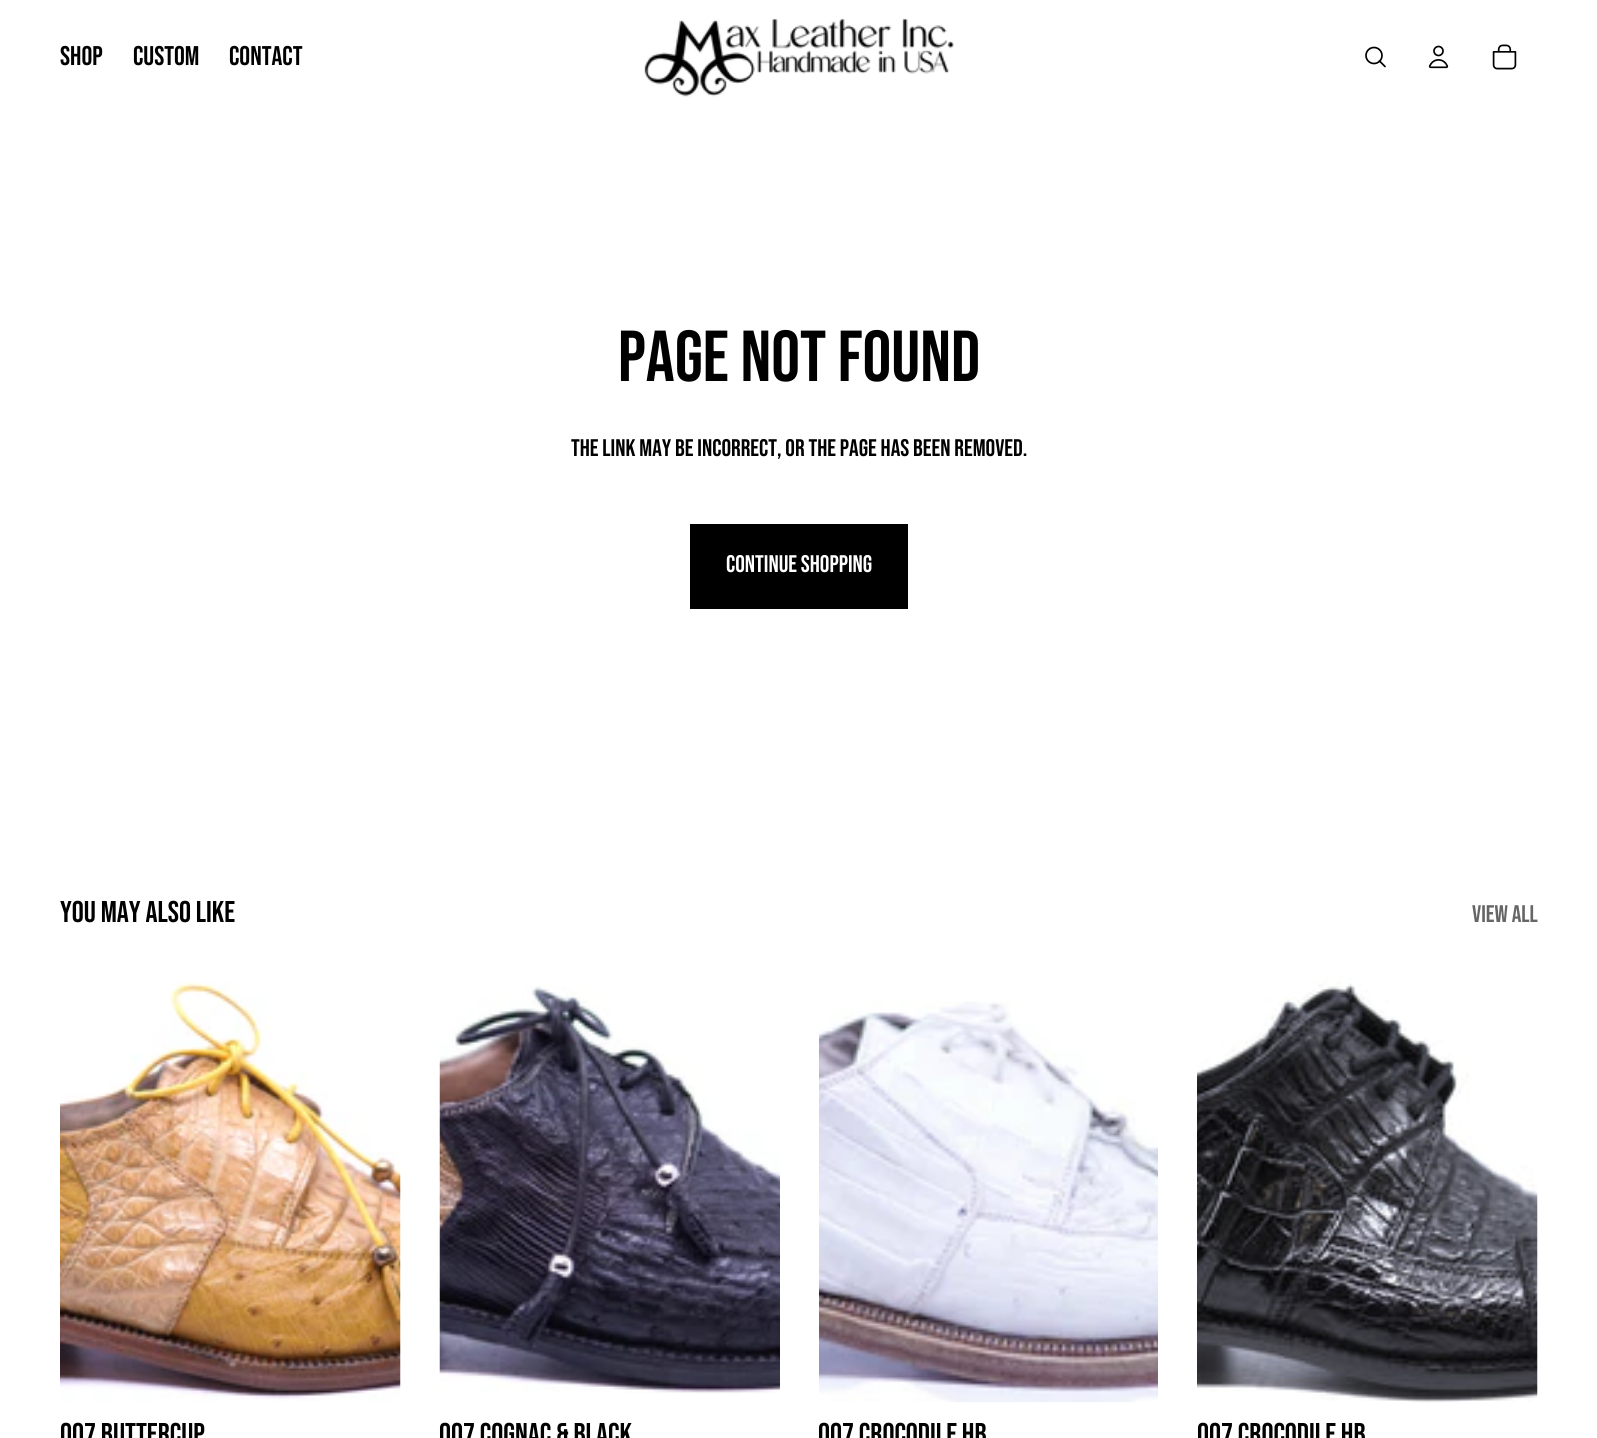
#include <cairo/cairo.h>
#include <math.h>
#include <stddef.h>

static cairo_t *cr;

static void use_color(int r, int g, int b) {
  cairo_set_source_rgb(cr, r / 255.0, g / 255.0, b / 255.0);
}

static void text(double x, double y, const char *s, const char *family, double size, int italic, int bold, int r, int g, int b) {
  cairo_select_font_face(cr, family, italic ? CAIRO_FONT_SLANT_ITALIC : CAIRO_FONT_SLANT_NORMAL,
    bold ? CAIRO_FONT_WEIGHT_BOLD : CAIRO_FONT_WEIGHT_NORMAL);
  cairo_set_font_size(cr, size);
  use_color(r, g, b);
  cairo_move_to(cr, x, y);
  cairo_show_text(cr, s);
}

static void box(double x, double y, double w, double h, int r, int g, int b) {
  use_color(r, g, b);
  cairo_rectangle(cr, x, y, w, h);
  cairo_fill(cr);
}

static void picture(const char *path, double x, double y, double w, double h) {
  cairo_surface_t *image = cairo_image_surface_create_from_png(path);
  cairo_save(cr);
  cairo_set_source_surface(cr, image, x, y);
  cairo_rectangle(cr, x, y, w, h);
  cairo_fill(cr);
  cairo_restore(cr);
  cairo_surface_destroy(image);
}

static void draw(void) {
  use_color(255, 255, 255);
  cairo_paint(cr);
  picture("img_01.png", 644, 18, 310, 79);
  cairo_arc(cr, 1374, 55.5, 8, 0, 2 * M_PI);
  use_color(0, 0, 0);
  cairo_set_line_width(cr, 1.7);
  cairo_stroke(cr);
  cairo_new_path(cr);
  cairo_move_to(cr, 1379.5, 61);
  cairo_line_to(cr, 1385, 66.5);
  cairo_set_line_cap(cr, CAIRO_LINE_CAP_ROUND);
  cairo_set_line_join(cr, CAIRO_LINE_JOIN_ROUND);
  cairo_stroke(cr);
  picture("img_02.png", 1428, 45, 21, 24);
  picture("img_03.png", 1492, 44, 25, 26);
  box(690, 524, 218, 85, 0, 0, 0);
  picture("img_04.png", 60, 981, 341, 421);
  picture("img_05.png", 439, 986, 341, 408);
  picture("img_06.png", 819, 1001, 339, 402);
  picture("img_07.png", 1197, 977, 341, 426);
  text(60, 65, "SHOP", "Bebas Neue", 27, 0, 0, 0, 0, 0);
  text(133, 65, "CUSTOM", "Bebas Neue", 27, 0, 0, 0, 0, 0);
  text(229, 65, "CONTACT", "Bebas Neue", 27, 0, 0, 0, 0, 0);
  text(618, 381, "Page not found", "Bebas Neue", 72, 0, 0, 0, 0, 0);
  text(571, 456, "The link may be incorrect, or the page has been removed.", "Bebas Neue", 24, 0, 0, 0, 0, 0);
  text(726, 572, "CONTINUE SHOPPING", "Bebas Neue", 24, 0, 0, 255, 255, 255);
  text(60, 922, "You may also like", "Bebas Neue", 30, 0, 0, 0, 0, 0);
  text(1472, 922, "View all", "Bebas Neue", 24, 0, 0, 102, 102, 102);
  text(60, 1444, "007 BUTTERCUP", "Bebas Neue", 30, 0, 0, 0, 0, 0);
  text(439, 1444, "007 COGNAC & BLACK", "Bebas Neue", 30, 0, 0, 0, 0, 0);
  text(818, 1444, "007 CROCODILE HB", "Bebas Neue", 30, 0, 0, 0, 0, 0);
  text(1197, 1444, "007 CROCODILE HB", "Bebas Neue", 30, 0, 0, 0, 0, 0);
}

int main(void) {
  cairo_surface_t *surface = cairo_image_surface_create(CAIRO_FORMAT_RGB24, 1597, 1438);
  cr = cairo_create(surface);
  cairo_font_options_t *options = cairo_font_options_create();
  cairo_font_options_set_hint_metrics(options, CAIRO_HINT_METRICS_OFF);
  cairo_font_options_set_hint_style(options, CAIRO_HINT_STYLE_NONE);
  cairo_set_font_options(cr, options);
  cairo_set_miter_limit(cr, 4);
  draw();
  cairo_surface_write_to_png(surface, "out.png");
  cairo_font_options_destroy(options);
  cairo_destroy(cr);
  cairo_surface_destroy(surface);
  return 0;
}
